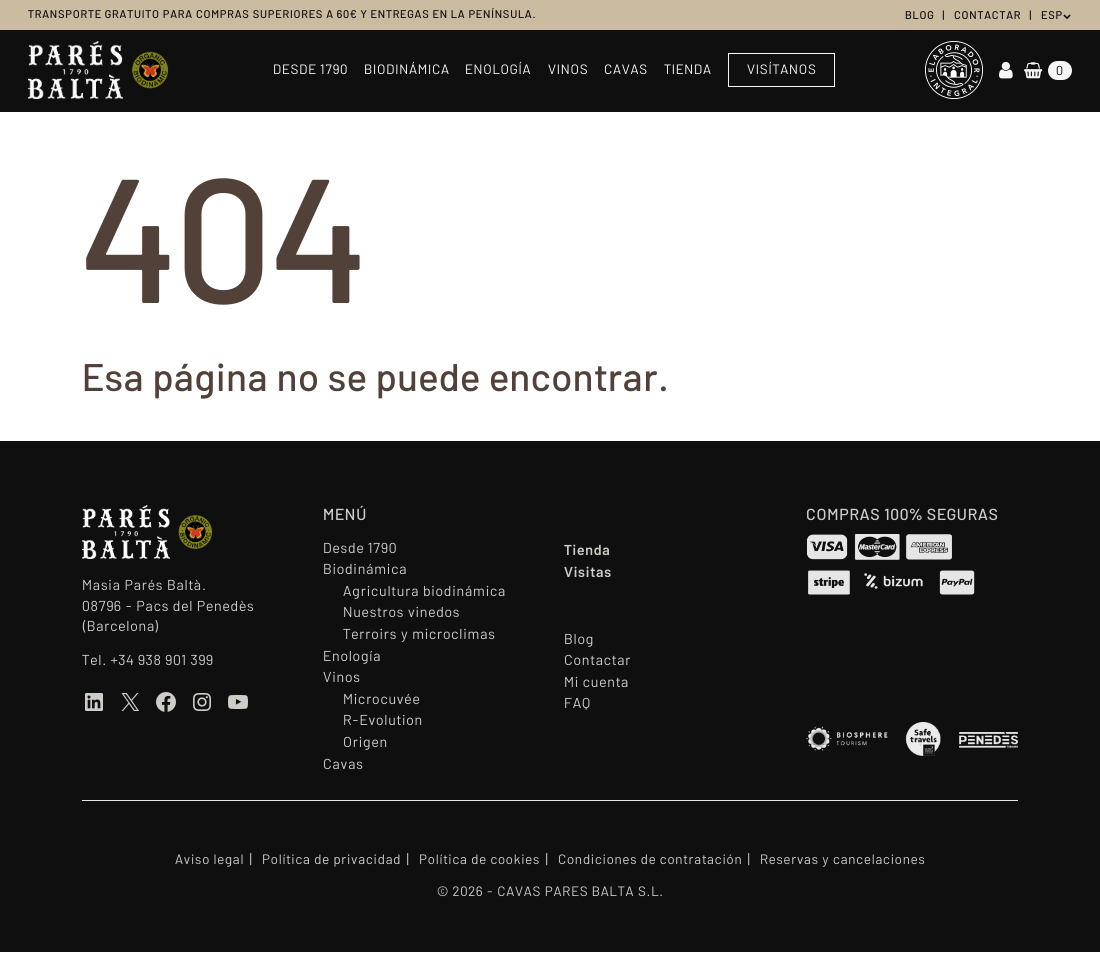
#include <cairo/cairo.h>
#include <math.h>
#include <stddef.h>

static cairo_t *cr;

static void use_color(int r, int g, int b) {
  cairo_set_source_rgb(cr, r / 255.0, g / 255.0, b / 255.0);
}

static void spaced_text(double x, double y, const char *s, double letter, double word) {
  cairo_move_to(cr, x, y);
  while (*s) {
    char ch[5] = {0};
    int n = 0;
    do ch[n++] = *s++; while ((*s & 0xC0) == 0x80);
    cairo_show_text(cr, ch);
    cairo_rel_move_to(cr, letter + word * (*ch == ' '), 0);
  }
}

static void box(double x, double y, double w, double h, int r, int g, int b) {
  use_color(r, g, b);
  cairo_rectangle(cr, x, y, w, h);
  cairo_fill(cr);
}

static void round_rect(double x, double y, double w, double h, double r) {
  cairo_new_sub_path(cr);
  cairo_arc(cr, x + w - r, y + h - r, r, 0, M_PI / 2);
  cairo_arc(cr, x + r, y + h - r, r, M_PI / 2, M_PI);
  cairo_arc(cr, x + r, y + r, r, M_PI, 1.5 * M_PI);
  cairo_arc(cr, x + w - r, y + r, r, 1.5 * M_PI, 2 * M_PI);
  cairo_close_path(cr);
}

static void picture(const char *path, double x, double y, double w, double h) {
  cairo_surface_t *image = cairo_image_surface_create_from_png(path);
  cairo_save(cr);
  cairo_set_source_surface(cr, image, x, y);
  cairo_rectangle(cr, x, y, w, h);
  cairo_fill(cr);
  cairo_restore(cr);
  cairo_surface_destroy(image);
}

static void draw(void) {
  use_color(255, 255, 255);
  cairo_paint(cr);
  box(0, 0, 1100, 30, 203, 187, 160);
  picture("img_01.png", 1063, 14, 8, 6);
  box(0, 30, 1100, 82, 15, 15, 15);
  picture("img_02.png", 28, 41, 140, 58);
  cairo_rectangle(cr, 728.5, 53.5, 106, 33);
  use_color(246, 246, 246);
  cairo_set_line_width(cr, 1);
  cairo_stroke(cr);
  picture("img_03.png", 925, 41, 58, 58);
  picture("img_04.png", 999, 61, 14, 18);
  picture("img_05.png", 1024, 62, 19, 17);
  round_rect(1048, 61, 24, 19, 9.5);
  cairo_fill(cr);
  box(0, 441, 1100, 511, 15, 15, 15);
  picture("img_06.png", 807, 534, 168, 61);
  picture("img_07.png", 806, 722, 212, 34);
  picture("img_08.png", 82, 505, 130, 54);
  picture("img_09.png", 85, 693, 18, 18);
  picture("img_10.png", 121, 693, 18, 18);
  picture("img_11.png", 156, 692, 20, 20);
  picture("img_12.png", 193, 693, 18, 18);
  picture("img_13.png", 228, 695, 20, 14);
  box(82, 800, 936, 1, 230, 230, 230);
  cairo_select_font_face(cr, "Barlow Medium", CAIRO_FONT_SLANT_NORMAL, CAIRO_FONT_WEIGHT_NORMAL);
  cairo_set_font_size(cr, 11.2);
  use_color(15, 15, 15);
  spaced_text(28, 18, "TRANSPORTE GRATUITO PARA COMPRAS SUPERIORES A 60€ Y ENTREGAS EN LA PENÍNSULA.", 0.8, 0);
  spaced_text(905, 19, "BLOG", 0.8, 0);
  spaced_text(942, 19, "|", 0.8, 0);
  spaced_text(954, 19, "CONTACTAR", 0.8, 0);
  spaced_text(1029, 19, "|", 0.8, 0);
  spaced_text(1041, 19, "ESP", 0.8, 0);
  cairo_select_font_face(cr, "Barlow", CAIRO_FONT_SLANT_NORMAL, CAIRO_FONT_WEIGHT_NORMAL);
  cairo_set_font_size(cr, 13.6);
  use_color(246, 246, 246);
  spaced_text(273, 74, "DESDE 1790", 0.8, 0);
  spaced_text(364, 74, "BIODINÁMICA", 0.8, 0);
  spaced_text(465, 74, "ENOLOGÍA", 0.8, 0);
  spaced_text(548, 74, "VINOS", 0.8, 0);
  spaced_text(604, 74, "CAVAS", 0.8, 0);
  spaced_text(664, 74, "TIENDA", 0.8, 0);
  spaced_text(747, 74, "VISÍTANOS", 0.8, 0);
  cairo_set_font_size(cr, 13);
  use_color(15, 15, 15);
  spaced_text(1056, 75, "0", 0.8, 0);
  cairo_select_font_face(cr, "Barlow Medium", CAIRO_FONT_SLANT_NORMAL, CAIRO_FONT_WEIGHT_NORMAL);
  cairo_set_font_size(cr, 176);
  use_color(82, 65, 56);
  spaced_text(82, 303, "404", 0.8, 0);
  cairo_set_font_size(cr, 38.5);
  spaced_text(82, 391, "Esa página no se puede encontrar.", 0.8, 0);
  cairo_set_font_size(cr, 16);
  use_color(207, 204, 199);
  spaced_text(323, 520, "MENÚ", 0.8, 0);
  cairo_select_font_face(cr, "Barlow", CAIRO_FONT_SLANT_NORMAL, CAIRO_FONT_WEIGHT_NORMAL);
  cairo_set_font_size(cr, 14.4);
  spaced_text(323, 553, "Desde 1790", 0.8, 0);
  spaced_text(323, 574, "Biodinámica", 0.8, 0);
  spaced_text(343, 596, "Agricultura biodinámica", 0.8, 0);
  spaced_text(343, 617, "Nuestros viñedos", 0.8, 0);
  spaced_text(343, 639, "Terroirs y microclimas", 0.8, 0);
  spaced_text(323, 661, "Enología", 0.8, 0);
  spaced_text(323, 682, "Vinos", 0.8, 0);
  spaced_text(343, 704, "Microcuvée", 0.8, 0);
  spaced_text(343, 725, "R-Evolution", 0.8, 0);
  spaced_text(343, 747, "Origen", 0.8, 0);
  spaced_text(323, 769, "Cavas", 0.8, 0);
  cairo_select_font_face(cr, "Barlow Medium", CAIRO_FONT_SLANT_NORMAL, CAIRO_FONT_WEIGHT_NORMAL);
  cairo_set_font_size(cr, 16);
  spaced_text(806, 520, "COMPRAS 100% SEGURAS", 0.8, 0);
  cairo_select_font_face(cr, "Barlow", CAIRO_FONT_SLANT_NORMAL, CAIRO_FONT_WEIGHT_NORMAL);
  cairo_set_font_size(cr, 14.4);
  spaced_text(82, 590, "Masia Parés Baltà.", 0.8, 0);
  spaced_text(82, 611, "08796 - Pacs del Penedès", 0.8, 0);
  spaced_text(82, 631, "(Barcelona)", 0.8, 0);
  spaced_text(82, 665, "Tel. +34 938 901 399", 0.8, 0);
  cairo_select_font_face(cr, "Barlow SemiBold", CAIRO_FONT_SLANT_NORMAL, CAIRO_FONT_WEIGHT_NORMAL);
  spaced_text(564, 555, "Tienda", 0.8, 0);
  spaced_text(564, 577, "Visitas", 0.8, 0);
  cairo_select_font_face(cr, "Barlow", CAIRO_FONT_SLANT_NORMAL, CAIRO_FONT_WEIGHT_NORMAL);
  spaced_text(564, 644, "Blog", 0.8, 0);
  spaced_text(564, 665, "Contactar", 0.8, 0);
  spaced_text(564, 687, "Mi cuenta", 0.8, 0);
  spaced_text(564, 708, "FAQ", 0.8, 0);
  cairo_set_font_size(cr, 13.6);
  spaced_text(175, 864, "Aviso legal", 0.8, 0);
  cairo_set_font_size(cr, 14.4);
  spaced_text(249, 864, "|", 0.8, 0);
  cairo_set_font_size(cr, 13.6);
  spaced_text(262, 864, "Política de privacidad", 0.8, 0);
  cairo_set_font_size(cr, 14.4);
  spaced_text(406, 864, "|", 0.8, 0);
  cairo_set_font_size(cr, 13.6);
  spaced_text(419, 864, "Política de cookies", 0.8, 0);
  cairo_set_font_size(cr, 14.4);
  spaced_text(545, 864, "|", 0.8, 0);
  cairo_set_font_size(cr, 13.6);
  spaced_text(558, 864, "Condiciones de contratación", 0.8, 0);
  cairo_set_font_size(cr, 14.4);
  spaced_text(747, 864, "|", 0.8, 0);
  cairo_set_font_size(cr, 13.6);
  spaced_text(760, 864, "Reservas y cancelaciones", 0.8, 0);
  spaced_text(437, 896, "© 2026 - CAVAS PARES BALTA S.L.", 0.8, 0);
}

int main(void) {
  cairo_surface_t *surface = cairo_image_surface_create(CAIRO_FORMAT_RGB24, 1100, 979);
  cr = cairo_create(surface);
  cairo_font_options_t *options = cairo_font_options_create();
  cairo_font_options_set_hint_metrics(options, CAIRO_HINT_METRICS_OFF);
  cairo_font_options_set_hint_style(options, CAIRO_HINT_STYLE_NONE);
  cairo_set_font_options(cr, options);
  cairo_set_miter_limit(cr, 4);
  draw();
  cairo_surface_write_to_png(surface, "out.png");
  cairo_font_options_destroy(options);
  cairo_destroy(cr);
  cairo_surface_destroy(surface);
  return 0;
}
